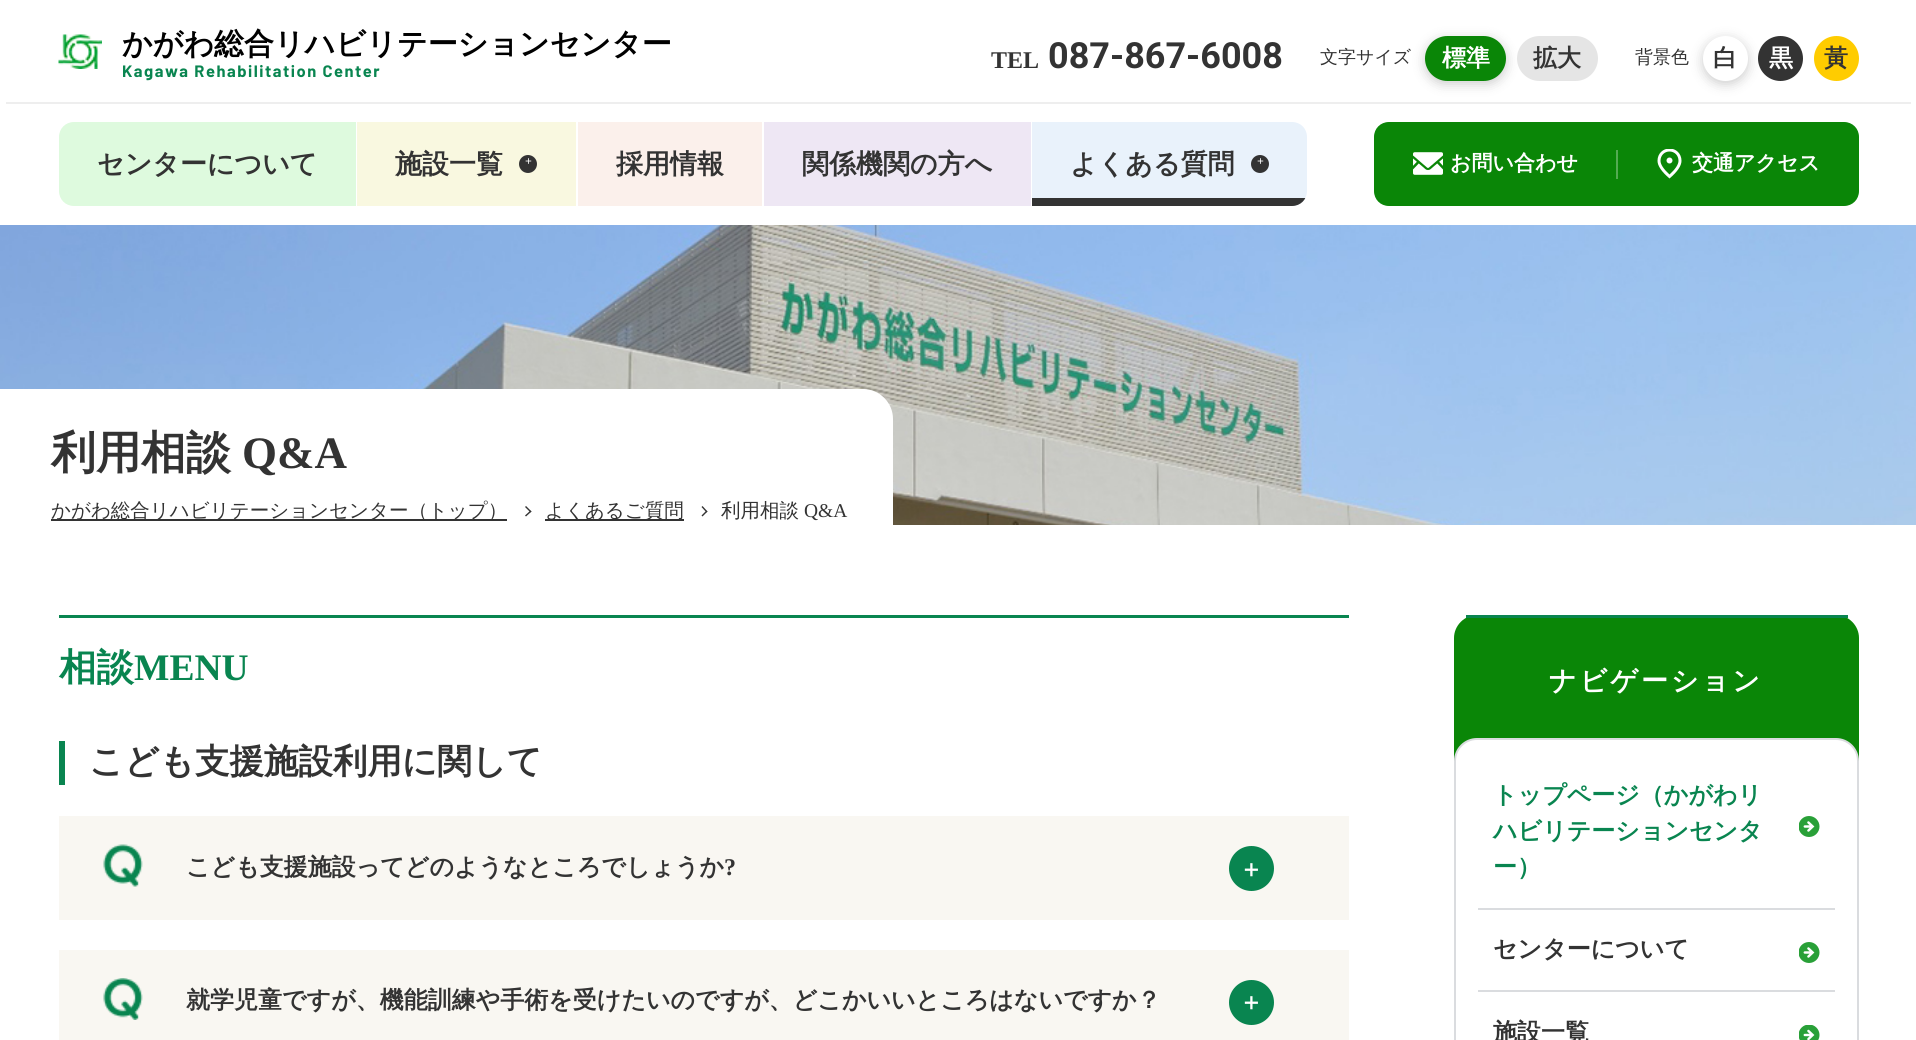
#include <cairo/cairo.h>
#include <math.h>
#include <stddef.h>

static cairo_t *cr;

static void use_color(int r, int g, int b) {
  cairo_set_source_rgb(cr, r / 255.0, g / 255.0, b / 255.0);
}

static void text(double x, double y, const char *s, const char *family, double size, int italic, int bold, int r, int g, int b) {
  cairo_select_font_face(cr, family, italic ? CAIRO_FONT_SLANT_ITALIC : CAIRO_FONT_SLANT_NORMAL,
    bold ? CAIRO_FONT_WEIGHT_BOLD : CAIRO_FONT_WEIGHT_NORMAL);
  cairo_set_font_size(cr, size);
  use_color(r, g, b);
  cairo_move_to(cr, x, y);
  cairo_show_text(cr, s);
}

static void spaced_text(double x, double y, const char *s, double letter, double word) {
  cairo_move_to(cr, x, y);
  while (*s) {
    char ch[5] = {0};
    int n = 0;
    do ch[n++] = *s++; while ((*s & 0xC0) == 0x80);
    cairo_show_text(cr, ch);
    cairo_rel_move_to(cr, letter + word * (*ch == ' '), 0);
  }
}

static void box(double x, double y, double w, double h, int r, int g, int b) {
  use_color(r, g, b);
  cairo_rectangle(cr, x, y, w, h);
  cairo_fill(cr);
}

static void round_rect(double x, double y, double w, double h, double r) {
  cairo_new_sub_path(cr);
  cairo_arc(cr, x + w - r, y + h - r, r, 0, M_PI / 2);
  cairo_arc(cr, x + r, y + h - r, r, M_PI / 2, M_PI);
  cairo_arc(cr, x + r, y + r, r, M_PI, 1.5 * M_PI);
  cairo_arc(cr, x + w - r, y + r, r, 1.5 * M_PI, 2 * M_PI);
  cairo_close_path(cr);
}

static void shadow(double x, double y, double w, double h, double r, double blur, double alpha) {
  cairo_push_group_with_content(cr, CAIRO_CONTENT_ALPHA);
  cairo_set_operator(cr, CAIRO_OPERATOR_SOURCE);
  for (int i = 15; i >= -15 && fmin(w, h) + blur * i / 3 > 0; i -= 2) {
    double e = blur * i / 6;
    cairo_set_source_rgba(cr, 0, 0, 0, alpha * erfc((i - 1) / 8.5) / 2);
    round_rect(x - e, y - e, w + 2 * e, h + 2 * e, fmax(0, fmin(r + e + blur * .6, fmin(w, h) / 2 + e)));
    cairo_fill(cr);
  }
  cairo_pattern_t *soft = cairo_pop_group(cr);
  cairo_mask(cr, soft);
  cairo_pattern_destroy(soft);
}

static void picture(const char *path, double x, double y, double w, double h) {
  cairo_surface_t *image = cairo_image_surface_create_from_png(path);
  cairo_save(cr);
  cairo_set_source_surface(cr, image, x, y);
  cairo_rectangle(cr, x, y, w, h);
  cairo_fill(cr);
  cairo_restore(cr);
  cairo_surface_destroy(image);
}

static void draw(void) {
  use_color(255, 255, 255);
  cairo_paint(cr);
  picture("img_01.png", 58, 34, 44, 35);
  use_color(0, 0, 0);
  shadow(1425, 39, 81, 45, 22.5, 6, 0.2);
  use_color(10, 134, 7);
  round_rect(1425, 36, 81, 45, 22.5);
  cairo_fill(cr);
  use_color(229, 229, 229);
  round_rect(1517, 36, 81, 45, 22.5);
  cairo_fill(cr);
  use_color(0, 0, 0);
  shadow(1703, 39, 45, 45, 22.5, 6, 0.2);
  use_color(255, 255, 255);
  cairo_arc(cr, 1725.5, 58.5, 22.5, 0, 2 * M_PI);
  cairo_fill(cr);
  use_color(51, 51, 51);
  cairo_arc(cr, 1780.5, 58.5, 22.5, 0, 2 * M_PI);
  cairo_fill(cr);
  use_color(255, 204, 0);
  cairo_arc(cr, 1836.5, 58.5, 22.5, 0, 2 * M_PI);
  cairo_fill(cr);
  box(6, 102, 1905, 2, 238, 238, 238);
  use_color(222, 250, 222);
  cairo_new_path(cr);
  cairo_move_to(cr, 74, 122);
  cairo_line_to(cr, 356, 122);
  cairo_line_to(cr, 356, 206);
  cairo_line_to(cr, 74, 206);
  cairo_curve_to(cr, 65.5, 206, 59, 199.5, 59, 191);
  cairo_line_to(cr, 59, 137);
  cairo_curve_to(cr, 59, 128.5, 65.5, 122, 74, 122);
  cairo_close_path(cr);
  cairo_fill(cr);
  box(357, 122, 219, 84, 249, 248, 224);
  use_color(51, 51, 51);
  cairo_arc(cr, 528, 164, 9, 0, 2 * M_PI);
  cairo_fill(cr);
  box(578, 122, 184, 84, 251, 240, 235);
  box(764, 122, 267, 84, 238, 231, 244);
  use_color(233, 242, 251);
  cairo_new_path(cr);
  cairo_move_to(cr, 1032, 122);
  cairo_line_to(cr, 1292, 122);
  cairo_curve_to(cr, 1300.5, 122, 1307, 128.5, 1307, 137);
  cairo_line_to(cr, 1307, 191);
  cairo_curve_to(cr, 1307, 199.5, 1300.5, 206, 1292, 206);
  cairo_line_to(cr, 1032, 206);
  cairo_close_path(cr);
  cairo_fill(cr);
  use_color(51, 51, 51);
  cairo_arc(cr, 1260, 164, 9, 0, 2 * M_PI);
  cairo_fill(cr);
  cairo_save(cr);
  cairo_new_path(cr);
  cairo_move_to(cr, 1032, 122);
  cairo_line_to(cr, 1292, 122);
  cairo_curve_to(cr, 1300.5, 122, 1307, 128.5, 1307, 137);
  cairo_line_to(cr, 1307, 191);
  cairo_curve_to(cr, 1307, 199.5, 1300.5, 206, 1292, 206);
  cairo_line_to(cr, 1032, 206);
  cairo_close_path(cr);
  cairo_clip(cr);
  box(1032, 198, 275, 8, 51, 51, 51);
  cairo_restore(cr);
  use_color(10, 134, 7);
  cairo_new_path(cr);
  cairo_move_to(cr, 1389, 122);
  cairo_line_to(cr, 1617, 122);
  cairo_line_to(cr, 1617, 206);
  cairo_line_to(cr, 1389, 206);
  cairo_curve_to(cr, 1380.5, 206, 1374, 199.5, 1374, 191);
  cairo_line_to(cr, 1374, 137);
  cairo_curve_to(cr, 1374, 128.5, 1380.5, 122, 1389, 122);
  cairo_close_path(cr);
  cairo_fill(cr);
  picture("img_02.png", 1413, 152, 30, 23);
  cairo_new_path(cr);
  cairo_move_to(cr, 1617, 122);
  cairo_line_to(cr, 1844, 122);
  cairo_curve_to(cr, 1852.5, 122, 1859, 128.5, 1859, 137);
  cairo_line_to(cr, 1859, 191);
  cairo_curve_to(cr, 1859, 199.5, 1852.5, 206, 1844, 206);
  cairo_line_to(cr, 1617, 206);
  cairo_close_path(cr);
  cairo_fill(cr);
  box(1616, 150, 2, 29, 84, 171, 82);
  picture("img_03.png", 1657, 149, 25, 30);
  picture("img_04.png", 0, 225, 1916, 300);
  use_color(255, 255, 255);
  cairo_new_path(cr);
  cairo_move_to(cr, 0, 389);
  cairo_line_to(cr, 863, 389);
  cairo_curve_to(cr, 879.5, 389, 893, 402.5, 893, 419);
  cairo_line_to(cr, 893, 525);
  cairo_line_to(cr, 0, 525);
  cairo_close_path(cr);
  cairo_fill(cr);
  box(51, 519, 456, 2, 51, 51, 51);
  cairo_new_path(cr);
  cairo_move_to(cr, 525, 507);
  cairo_line_to(cr, 526, 506);
  cairo_line_to(cr, 531.5, 511.5);
  cairo_line_to(cr, 530.5, 512.5);
  cairo_close_path(cr);
  cairo_fill(cr);
  cairo_new_path(cr);
  cairo_move_to(cr, 525, 515.5);
  cairo_line_to(cr, 530.5, 510.5);
  cairo_line_to(cr, 531.5, 511.5);
  cairo_line_to(cr, 526, 516.5);
  cairo_close_path(cr);
  cairo_fill(cr);
  box(545, 519, 139, 2, 51, 51, 51);
  cairo_new_path(cr);
  cairo_move_to(cr, 701.5, 507);
  cairo_line_to(cr, 702.5, 506);
  cairo_line_to(cr, 707.5, 511.5);
  cairo_line_to(cr, 706.5, 512.5);
  cairo_close_path(cr);
  cairo_fill(cr);
  cairo_new_path(cr);
  cairo_move_to(cr, 701.5, 515.5);
  cairo_line_to(cr, 706.5, 510.5);
  cairo_line_to(cr, 707.5, 511.5);
  cairo_line_to(cr, 702.5, 516.5);
  cairo_close_path(cr);
  cairo_fill(cr);
  box(59, 615, 1290, 3, 9, 133, 80);
  box(59, 741, 6, 44, 9, 133, 80);
  box(59, 816, 1290, 104, 249, 247, 242);
  picture("img_05.png", 103, 844, 40, 43);
  use_color(9, 133, 80);
  cairo_arc(cr, 1251.5, 868.5, 22.5, 0, 2 * M_PI);
  cairo_fill(cr);
  box(59, 950, 1290, 90, 249, 247, 242);
  picture("img_06.png", 103, 978, 40, 42);
  use_color(9, 133, 80);
  cairo_arc(cr, 1251.5, 1002.5, 22.5, 0, 2 * M_PI);
  cairo_fill(cr);
  use_color(10, 134, 7);
  cairo_new_path(cr);
  cairo_move_to(cr, 1477, 615);
  cairo_line_to(cr, 1836, 615);
  cairo_curve_to(cr, 1848.5, 615, 1859, 625.5, 1859, 638);
  cairo_line_to(cr, 1859, 761);
  cairo_line_to(cr, 1454, 761);
  cairo_line_to(cr, 1454, 638);
  cairo_curve_to(cr, 1454, 625.5, 1464.5, 615, 1477, 615);
  cairo_close_path(cr);
  cairo_fill(cr);
  box(1466, 615, 382, 3, 9, 133, 80);
  use_color(255, 255, 255);
  round_rect(1455, 739, 403, 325, 22);
  cairo_fill_preserve(cr);
  use_color(218, 220, 223);
  cairo_stroke(cr);
  picture("img_07.png", 1799, 816, 21, 21);
  box(1478, 908, 357, 2, 218, 220, 223);
  picture("img_07.png", 1799, 942, 21, 21);
  box(1478, 990, 357, 2, 218, 220, 223);
  picture("img_08.png", 1799, 1025, 21, 15);
  text(122, 54, "かがわ総合リハビリテーションセンター", "WenQuanYi Zen Hei", 30, 0, 1, 0, 0, 0);
  cairo_select_font_face(cr, "Barlow", CAIRO_FONT_SLANT_NORMAL, CAIRO_FONT_WEIGHT_BOLD);
  cairo_set_font_size(cr, 16.5);
  use_color(9, 133, 80);
  spaced_text(122, 77, "Kagawa Rehabilitation Center", 1.5, 0);
  text(991, 68, "TEL", "Liberation Serif", 24, 0, 1, 51, 51, 51);
  text(1048, 68, "087-867-6008", "Roboto", 36, 0, 1, 51, 51, 51);
  text(1320, 63, "文字サイズ", "WenQuanYi Zen Hei Medium", 18, 0, 0, 51, 51, 51);
  text(1442, 66, "標準", "WenQuanYi Zen Hei", 24, 0, 1, 255, 255, 255);
  text(1533, 66, "拡大", "WenQuanYi Zen Hei", 24, 0, 1, 51, 51, 51);
  text(1635, 63, "背景色", "WenQuanYi Zen Hei Medium", 18, 0, 0, 51, 51, 51);
  text(1713, 66, "白", "WenQuanYi Zen Hei", 24, 0, 1, 51, 51, 51);
  text(1769, 66, "黒", "WenQuanYi Zen Hei", 24, 0, 1, 255, 255, 255);
  text(1824, 66, "黃", "WenQuanYi Zen Hei", 24, 0, 1, 51, 51, 51);
  text(97, 173, "センターについて", "WenQuanYi Zen Hei", 27, 0, 1, 51, 51, 51);
  text(395, 173, "施設一覧", "WenQuanYi Zen Hei", 27, 0, 1, 51, 51, 51);
  text(525, 165, "+", "Liberation Serif", 12, 0, 1, 255, 255, 255);
  text(616, 173, "採用情報", "WenQuanYi Zen Hei", 27, 0, 1, 51, 51, 51);
  text(802, 173, "関係機関の方へ", "WenQuanYi Zen Hei", 27, 0, 1, 51, 51, 51);
  text(1070, 173, "よくある質問", "WenQuanYi Zen Hei", 27, 0, 1, 51, 51, 51);
  text(1257, 165, "+", "Liberation Serif", 12, 0, 1, 255, 255, 255);
  text(1450, 170, "お問い合わせ", "WenQuanYi Zen Hei", 21, 0, 1, 255, 255, 255);
  text(1692, 170, "交通アクセス", "WenQuanYi Zen Hei", 21, 0, 1, 255, 255, 255);
  text(51, 468, "利用相談", "WenQuanYi Zen Hei", 45, 0, 1, 51, 51, 51);
  text(242, 468, "Q&A", "Liberation Serif", 45, 0, 1, 51, 51, 51);
  text(51, 517, "かがわ総合リハビリテーションセンター（トップ）", "WenQuanYi Zen Hei Medium", 19.5, 0, 0, 51, 51, 51);
  text(545, 517, "よくあるご質問", "WenQuanYi Zen Hei Medium", 19.5, 0, 0, 51, 51, 51);
  text(721, 517, "利用相談", "WenQuanYi Zen Hei Medium", 19.5, 0, 0, 51, 51, 51);
  text(804, 517, "Q&A", "Liberation Serif", 19.5, 0, 0, 51, 51, 51);
  text(59, 680, "相談", "WenQuanYi Zen Hei", 37.5, 0, 1, 9, 133, 80);
  text(134, 680, "MENU", "Liberation Serif", 37.5, 0, 1, 9, 133, 80);
  text(89, 773, "こども支援施設利用に関して", "WenQuanYi Zen Hei", 34.5, 0, 1, 51, 51, 51);
  text(186, 875, "こども支援施設ってどのようなところでしょうか", "WenQuanYi Zen Hei", 24, 0, 1, 51, 51, 51);
  text(724, 875, "?", "Liberation Serif", 24, 0, 1, 51, 51, 51);
  text(1239, 877, "＋", "WenQuanYi Zen Hei", 24, 0, 1, 255, 255, 255);
  text(186, 1008, "就学児童ですが、機能訓練や手術を受けたいのですが、どこかいいところはないですか？", "WenQuanYi Zen Hei", 24, 0, 1, 51, 51, 51);
  text(1239, 1010, "＋", "WenQuanYi Zen Hei", 24, 0, 1, 255, 255, 255);
  cairo_set_font_size(cr, 27);
  spaced_text(1549, 690, "ナビゲーション", 3, 0);
  text(1493, 803, "トップページ（かがわリ", "WenQuanYi Zen Hei", 24, 0, 1, 9, 133, 80);
  text(1493, 839, "ハビリテーションセンタ", "WenQuanYi Zen Hei", 24, 0, 1, 9, 133, 80);
  text(1493, 875, "ー）", "WenQuanYi Zen Hei", 24, 0, 1, 9, 133, 80);
  text(1493, 957, "センターについて", "WenQuanYi Zen Hei", 24, 0, 1, 51, 51, 51);
  text(1493, 1040, "施設一覧", "WenQuanYi Zen Hei", 24, 0, 1, 51, 51, 51);
}

int main(void) {
  cairo_surface_t *surface = cairo_image_surface_create(CAIRO_FORMAT_RGB24, 1916, 1040);
  cr = cairo_create(surface);
  cairo_font_options_t *options = cairo_font_options_create();
  cairo_font_options_set_hint_metrics(options, CAIRO_HINT_METRICS_OFF);
  cairo_font_options_set_hint_style(options, CAIRO_HINT_STYLE_NONE);
  cairo_set_font_options(cr, options);
  cairo_set_miter_limit(cr, 4);
  draw();
  cairo_surface_write_to_png(surface, "out.png");
  cairo_font_options_destroy(options);
  cairo_destroy(cr);
  cairo_surface_destroy(surface);
  return 0;
}
